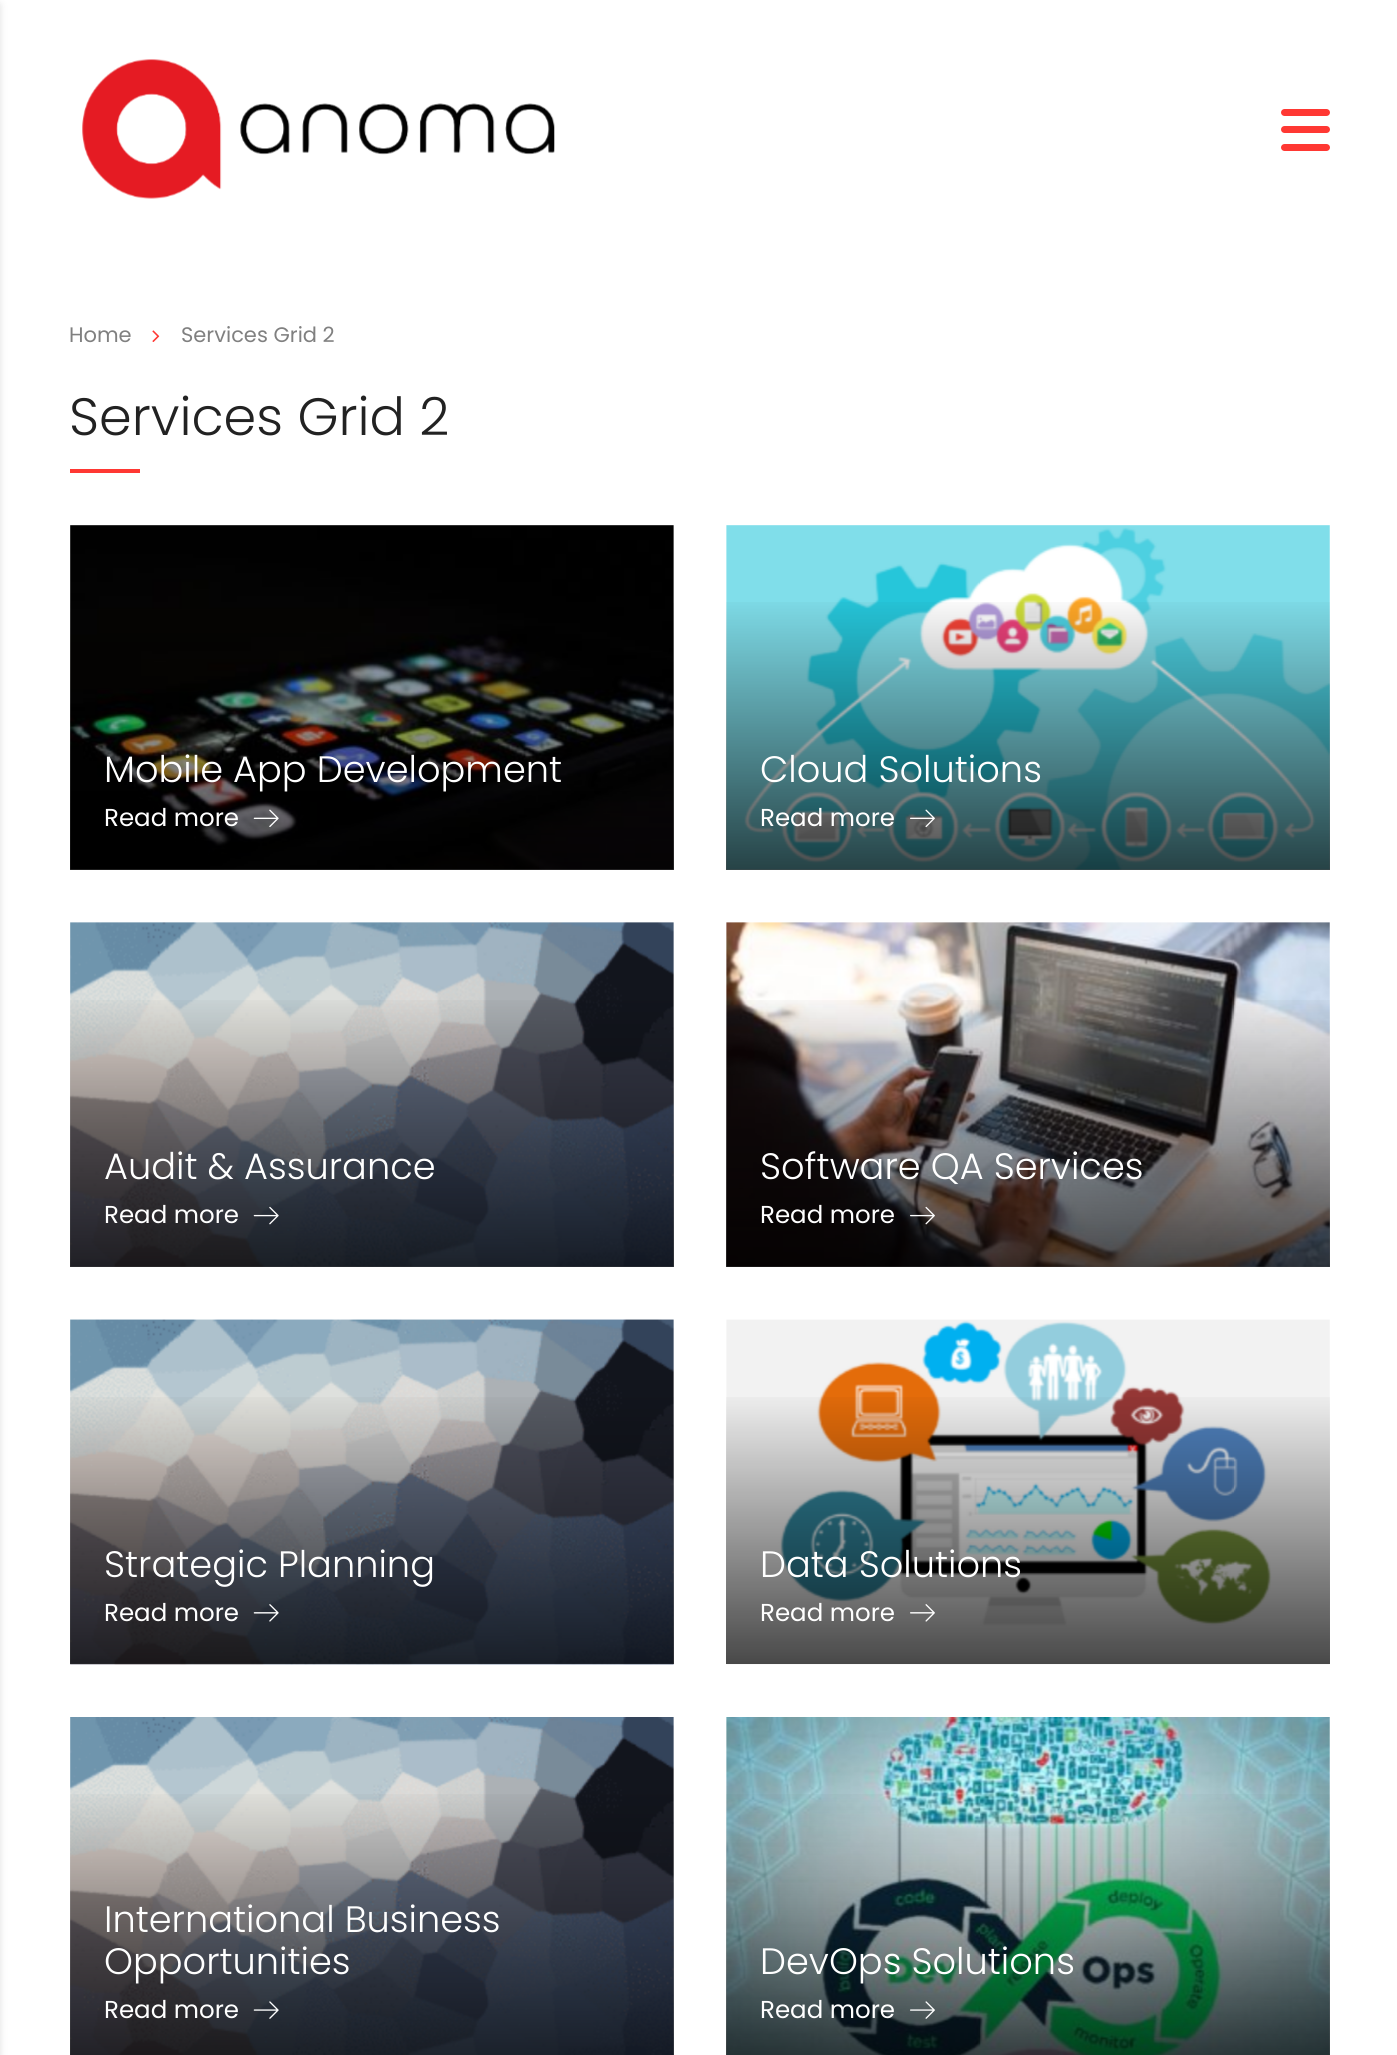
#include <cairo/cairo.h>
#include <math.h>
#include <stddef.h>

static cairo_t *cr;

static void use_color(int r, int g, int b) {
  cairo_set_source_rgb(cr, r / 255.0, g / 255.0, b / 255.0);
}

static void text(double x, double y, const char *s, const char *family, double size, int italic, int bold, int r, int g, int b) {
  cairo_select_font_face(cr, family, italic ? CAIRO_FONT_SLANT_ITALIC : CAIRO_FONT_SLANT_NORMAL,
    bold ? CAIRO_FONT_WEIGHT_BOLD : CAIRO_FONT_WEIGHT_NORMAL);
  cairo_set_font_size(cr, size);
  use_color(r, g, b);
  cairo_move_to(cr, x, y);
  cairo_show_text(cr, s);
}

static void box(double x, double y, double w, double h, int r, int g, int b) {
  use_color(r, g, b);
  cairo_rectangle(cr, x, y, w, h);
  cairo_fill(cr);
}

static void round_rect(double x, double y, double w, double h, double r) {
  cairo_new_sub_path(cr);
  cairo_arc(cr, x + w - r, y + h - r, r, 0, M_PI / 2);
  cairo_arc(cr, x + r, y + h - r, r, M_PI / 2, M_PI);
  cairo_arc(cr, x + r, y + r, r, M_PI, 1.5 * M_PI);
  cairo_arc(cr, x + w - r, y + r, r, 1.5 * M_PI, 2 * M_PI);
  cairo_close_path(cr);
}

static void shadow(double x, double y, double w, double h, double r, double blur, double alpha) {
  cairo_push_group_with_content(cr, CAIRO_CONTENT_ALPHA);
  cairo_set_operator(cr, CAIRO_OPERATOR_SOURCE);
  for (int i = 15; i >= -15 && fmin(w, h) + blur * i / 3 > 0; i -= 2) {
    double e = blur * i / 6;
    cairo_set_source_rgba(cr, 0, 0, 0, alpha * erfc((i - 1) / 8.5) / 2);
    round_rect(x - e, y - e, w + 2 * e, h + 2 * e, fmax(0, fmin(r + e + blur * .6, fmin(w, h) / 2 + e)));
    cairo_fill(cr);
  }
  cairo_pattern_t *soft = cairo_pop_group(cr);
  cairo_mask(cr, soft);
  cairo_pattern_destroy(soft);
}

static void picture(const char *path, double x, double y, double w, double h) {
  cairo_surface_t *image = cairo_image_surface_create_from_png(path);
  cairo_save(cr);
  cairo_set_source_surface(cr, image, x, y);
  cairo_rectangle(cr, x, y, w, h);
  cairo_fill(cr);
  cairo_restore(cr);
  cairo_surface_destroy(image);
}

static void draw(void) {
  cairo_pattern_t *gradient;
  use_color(255, 255, 255);
  cairo_paint(cr);
  use_color(0, 0, 0);
  shadow(-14, 5, 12, 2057, 0, 4.5, 0.2);
  picture("img_01.png", 82, 59, 473, 140);
  use_color(255, 56, 51);
  round_rect(1281, 109, 49, 7, 3.5);
  cairo_fill(cr);
  round_rect(1281, 126, 49, 7, 3.5);
  cairo_fill(cr);
  round_rect(1281, 144, 49, 7, 3.5);
  cairo_fill(cr);
  picture("img_02.png", 152, 330, 8, 12);
  box(70, 469, 70, 4, 255, 56, 51);
  picture("img_03.png", 70, 525, 604, 345);
  gradient = cairo_pattern_create_linear(372, 870, 372, 593);
  cairo_pattern_add_color_stop_rgba(gradient, 0, 0, 0, 0, 0.7);
  cairo_pattern_add_color_stop_rgba(gradient, 1, 0, 0, 0, 0);
  cairo_set_source(cr, gradient);
  cairo_pattern_destroy(gradient);
  cairo_rectangle(cr, 70, 603, 604, 267);
  cairo_fill(cr);
  picture("img_04.png", 253, 809, 26, 18);
  picture("img_05.png", 726, 525, 604, 345);
  gradient = cairo_pattern_create_linear(1028, 870, 1028, 593);
  cairo_pattern_add_color_stop_rgba(gradient, 0, 0, 0, 0, 0.7);
  cairo_pattern_add_color_stop_rgba(gradient, 1, 0, 0, 0, 0);
  cairo_set_source(cr, gradient);
  cairo_pattern_destroy(gradient);
  cairo_rectangle(cr, 726, 602, 604, 268);
  cairo_fill(cr);
  picture("img_06.png", 910, 809, 25, 19);
  picture("img_07.png", 70, 922, 604, 345);
  gradient = cairo_pattern_create_linear(372, 1267, 372, 991);
  cairo_pattern_add_color_stop_rgba(gradient, 0, 0, 0, 0, 0.7);
  cairo_pattern_add_color_stop_rgba(gradient, 1, 0, 0, 0, 0);
  cairo_set_source(cr, gradient);
  cairo_pattern_destroy(gradient);
  cairo_rectangle(cr, 70, 1000, 604, 267);
  cairo_fill(cr);
  picture("img_08.png", 253, 1206, 26, 19);
  picture("img_09.png", 726, 922, 604, 345);
  gradient = cairo_pattern_create_linear(1028, 1267, 1028, 991);
  cairo_pattern_add_color_stop_rgba(gradient, 0, 0, 0, 0, 0.7);
  cairo_pattern_add_color_stop_rgba(gradient, 1, 0, 0, 0, 0);
  cairo_set_source(cr, gradient);
  cairo_pattern_destroy(gradient);
  cairo_rectangle(cr, 726, 1000, 604, 267);
  cairo_fill(cr);
  picture("img_10.png", 910, 1206, 25, 19);
  picture("img_11.png", 70, 1319, 604, 346);
  gradient = cairo_pattern_create_linear(372, 1664, 372, 1388);
  cairo_pattern_add_color_stop_rgba(gradient, 0, 0, 0, 0, 0.7);
  cairo_pattern_add_color_stop_rgba(gradient, 1, 0, 0, 0, 0);
  cairo_set_source(cr, gradient);
  cairo_pattern_destroy(gradient);
  cairo_rectangle(cr, 70, 1397, 604, 267);
  cairo_fill(cr);
  picture("img_12.png", 253, 1604, 26, 18);
  picture("img_13.png", 726, 1319, 604, 346);
  gradient = cairo_pattern_create_linear(1028, 1664, 1028, 1388);
  cairo_pattern_add_color_stop_rgba(gradient, 0, 0, 0, 0, 0.7);
  cairo_pattern_add_color_stop_rgba(gradient, 1, 0, 0, 0, 0);
  cairo_set_source(cr, gradient);
  cairo_pattern_destroy(gradient);
  cairo_rectangle(cr, 726, 1397, 604, 267);
  cairo_fill(cr);
  picture("img_14.png", 910, 1604, 25, 18);
  picture("img_15.png", 70, 1717, 604, 338);
  gradient = cairo_pattern_create_linear(372, 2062, 372, 1785);
  cairo_pattern_add_color_stop_rgba(gradient, 0, 0, 0, 0, 0.7);
  cairo_pattern_add_color_stop_rgba(gradient, 1, 0, 0, 0, 0);
  cairo_set_source(cr, gradient);
  cairo_pattern_destroy(gradient);
  cairo_rectangle(cr, 70, 1794, 604, 261);
  cairo_fill(cr);
  picture("img_16.png", 253, 2001, 26, 18);
  picture("img_17.png", 726, 1717, 604, 338);
  gradient = cairo_pattern_create_linear(1028, 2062, 1028, 1785);
  cairo_pattern_add_color_stop_rgba(gradient, 0, 0, 0, 0, 0.7);
  cairo_pattern_add_color_stop_rgba(gradient, 1, 0, 0, 0, 0);
  cairo_set_source(cr, gradient);
  cairo_pattern_destroy(gradient);
  cairo_rectangle(cr, 726, 1794, 604, 261);
  cairo_fill(cr);
  picture("img_18.png", 910, 2001, 25, 18);
  text(69, 342, "Home", "Poppins", 21, 0, 0, 128, 128, 128);
  text(181, 342, "Services Grid 2", "Poppins", 21, 0, 0, 128, 128, 128);
  text(69, 435, "Services Grid 2", "Poppins Light", 52.5, 0, 0, 34, 34, 34);
  text(104, 782, "Mobile App Development", "Poppins Light", 36.75, 0, 0, 255, 255, 255);
  text(104, 826, "Read more", "Poppins", 24.5, 0, 0, 255, 255, 255);
  text(760, 782, "Cloud Solutions", "Poppins Light", 36.75, 0, 0, 255, 255, 255);
  text(760, 826, "Read more", "Poppins", 24.5, 0, 0, 255, 255, 255);
  text(104, 1179, "Audit & Assurance", "Poppins Light", 36.75, 0, 0, 255, 255, 255);
  text(104, 1223, "Read more", "Poppins", 24.5, 0, 0, 255, 255, 255);
  text(760, 1179, "Software QA Services", "Poppins Light", 36.75, 0, 0, 255, 255, 255);
  text(760, 1223, "Read more", "Poppins", 24.5, 0, 0, 255, 255, 255);
  text(104, 1577, "Strategic Planning", "Poppins Light", 36.75, 0, 0, 255, 255, 255);
  text(104, 1621, "Read more", "Poppins", 24.5, 0, 0, 255, 255, 255);
  text(760, 1577, "Data Solutions", "Poppins Light", 36.75, 0, 0, 255, 255, 255);
  text(760, 1621, "Read more", "Poppins", 24.5, 0, 0, 255, 255, 255);
  text(104, 1932, "International Business", "Poppins Light", 36.75, 0, 0, 255, 255, 255);
  text(104, 1974, "Opportunities", "Poppins Light", 36.75, 0, 0, 255, 255, 255);
  text(104, 2018, "Read more", "Poppins", 24.5, 0, 0, 255, 255, 255);
  text(760, 1974, "DevOps Solutions", "Poppins Light", 36.75, 0, 0, 255, 255, 255);
  text(760, 2018, "Read more", "Poppins", 24.5, 0, 0, 255, 255, 255);
}

int main(void) {
  cairo_surface_t *surface = cairo_image_surface_create(CAIRO_FORMAT_RGB24, 1397, 2055);
  cr = cairo_create(surface);
  cairo_font_options_t *options = cairo_font_options_create();
  cairo_font_options_set_hint_metrics(options, CAIRO_HINT_METRICS_OFF);
  cairo_font_options_set_hint_style(options, CAIRO_HINT_STYLE_NONE);
  cairo_set_font_options(cr, options);
  cairo_set_miter_limit(cr, 4);
  draw();
  cairo_surface_write_to_png(surface, "out.png");
  cairo_font_options_destroy(options);
  cairo_destroy(cr);
  cairo_surface_destroy(surface);
  return 0;
}
